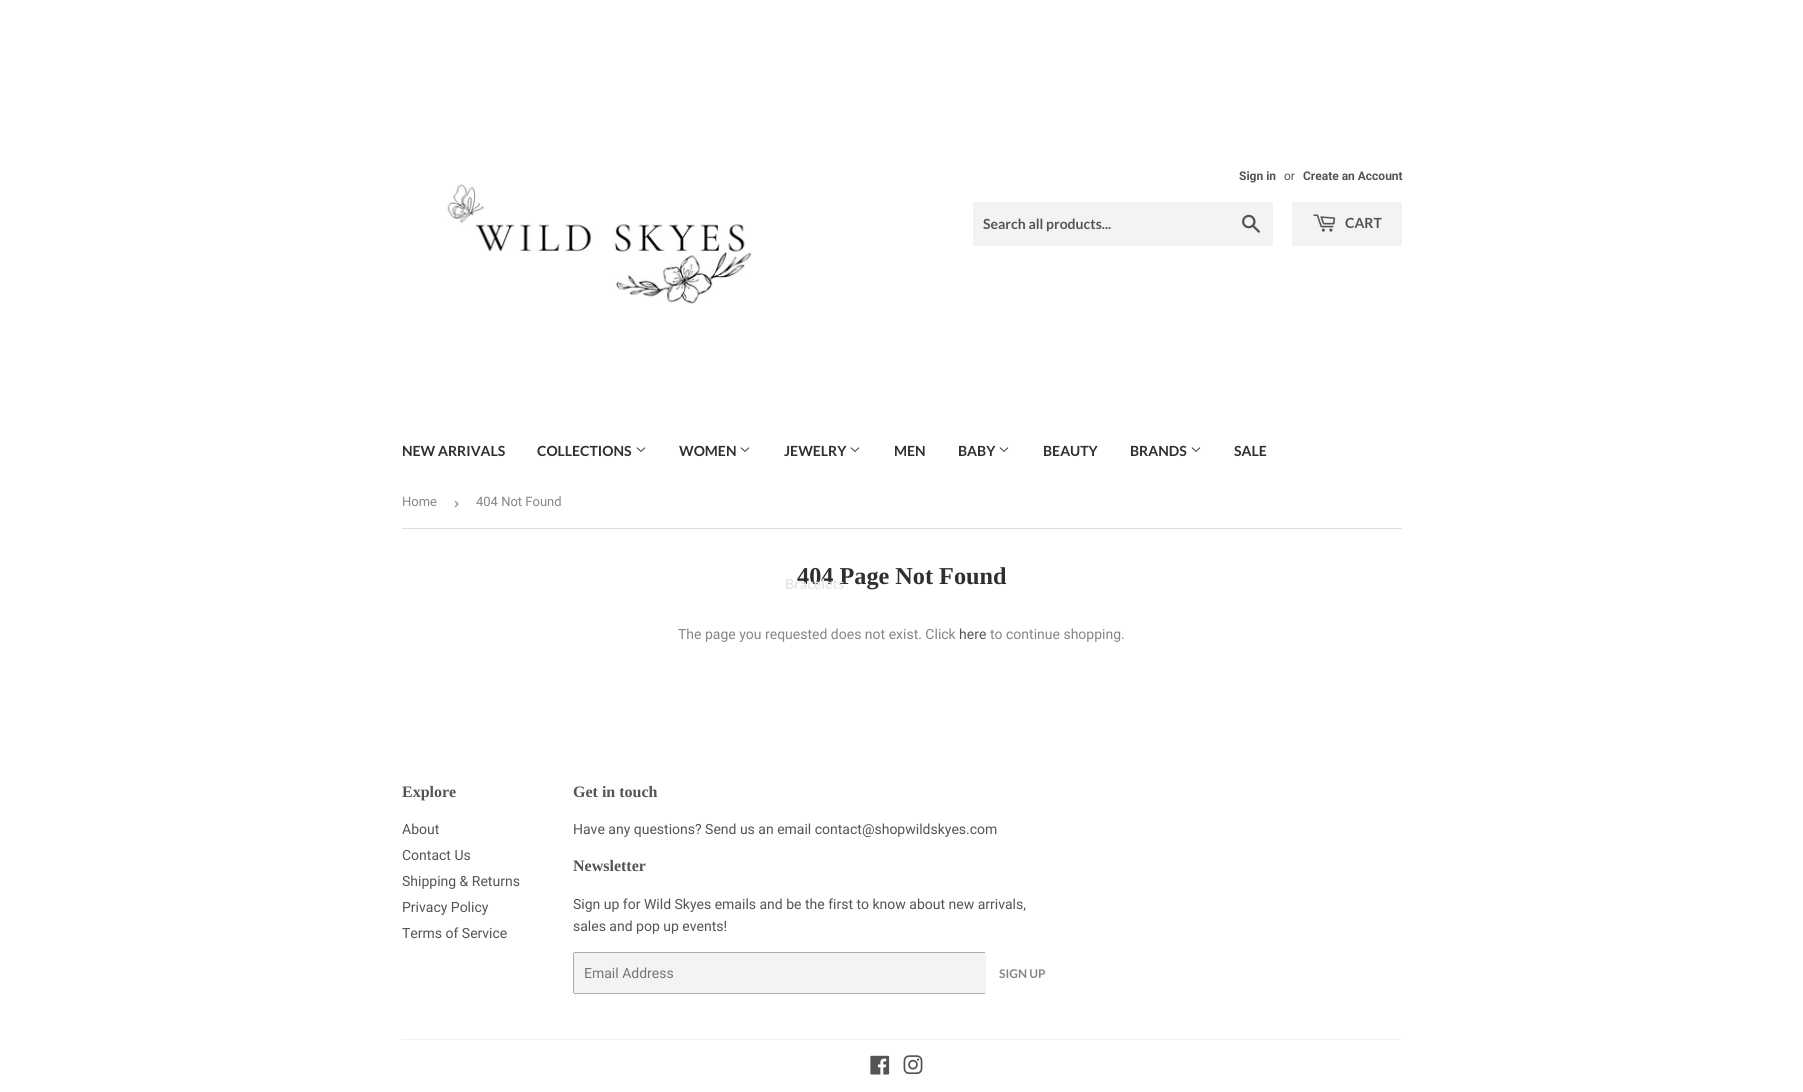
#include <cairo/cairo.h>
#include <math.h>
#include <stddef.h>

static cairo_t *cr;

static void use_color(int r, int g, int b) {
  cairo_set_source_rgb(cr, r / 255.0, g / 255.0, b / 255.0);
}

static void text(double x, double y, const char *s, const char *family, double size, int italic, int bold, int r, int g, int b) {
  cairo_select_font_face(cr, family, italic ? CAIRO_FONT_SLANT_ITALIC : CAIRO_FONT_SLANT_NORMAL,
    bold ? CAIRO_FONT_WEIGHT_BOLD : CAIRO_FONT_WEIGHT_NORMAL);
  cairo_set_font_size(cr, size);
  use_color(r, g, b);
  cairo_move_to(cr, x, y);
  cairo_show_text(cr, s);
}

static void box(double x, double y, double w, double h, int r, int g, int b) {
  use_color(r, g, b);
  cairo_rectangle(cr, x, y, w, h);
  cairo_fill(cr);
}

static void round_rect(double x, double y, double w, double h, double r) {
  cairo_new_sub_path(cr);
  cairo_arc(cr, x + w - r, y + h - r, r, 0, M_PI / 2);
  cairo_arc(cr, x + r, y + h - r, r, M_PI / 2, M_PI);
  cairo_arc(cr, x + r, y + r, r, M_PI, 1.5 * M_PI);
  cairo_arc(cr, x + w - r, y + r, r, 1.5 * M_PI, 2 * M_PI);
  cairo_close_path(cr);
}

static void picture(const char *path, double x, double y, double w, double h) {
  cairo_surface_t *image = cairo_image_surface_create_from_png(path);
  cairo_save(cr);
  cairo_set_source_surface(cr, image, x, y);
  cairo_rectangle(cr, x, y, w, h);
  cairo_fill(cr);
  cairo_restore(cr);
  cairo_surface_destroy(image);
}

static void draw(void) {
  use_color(255, 255, 255);
  cairo_paint(cr);
  picture("img_01.png", 447, 184, 305, 120);
  use_color(243, 243, 243);
  round_rect(973, 202, 300, 44, 2);
  cairo_fill(cr);
  picture("img_02.png", 1242, 214, 18, 19);
  round_rect(1292, 202, 110, 44, 2);
  cairo_fill(cr);
  picture("img_03.png", 1313, 214, 23, 18);
  picture("img_04.png", 636, 447, 10, 5);
  picture("img_04.png", 740, 447, 10, 5);
  picture("img_04.png", 850, 447, 10, 5);
  picture("img_04.png", 999, 447, 10, 5);
  picture("img_04.png", 1191, 447, 10, 5);
  box(402, 528, 1000, 1, 222, 222, 222);
  use_color(243, 243, 243);
  round_rect(573, 952, 413, 42, 2);
  cairo_fill(cr);
  box(574, 952, 411, 1, 171, 171, 171);
  box(574, 993, 411, 1, 171, 171, 171);
  box(573, 953, 1, 40, 171, 171, 171);
  box(402, 1039, 1000, 1, 242, 242, 242);
  picture("img_05.png", 870, 1055, 20, 20);
  picture("img_06.png", 903, 1055, 20, 20);
  text(1239, 180, "Sign in", "Roboto", 12, 0, 1, 84, 84, 84);
  text(1284, 180, "or", "Roboto", 12, 0, 0, 84, 84, 84);
  text(1303, 180, "Create an Account", "Roboto", 12, 0, 1, 84, 84, 84);
  text(983, 229, "Search all products...", "Lato", 14, 0, 1, 84, 84, 84);
  text(1345, 228, "CART", "Lato", 14, 0, 1, 84, 84, 84);
  text(402, 456, "NEW ARRIVALS", "Lato", 14, 0, 1, 47, 47, 47);
  text(537, 456, "COLLECTIONS", "Lato", 14, 0, 1, 47, 47, 47);
  text(679, 456, "WOMEN", "Lato", 14, 0, 1, 47, 47, 47);
  text(784, 456, "JEWELRY", "Lato", 14, 0, 1, 47, 47, 47);
  text(894, 456, "MEN", "Lato", 14, 0, 1, 47, 47, 47);
  text(958, 456, "BABY", "Lato", 14, 0, 1, 47, 47, 47);
  text(1043, 456, "BEAUTY", "Lato", 14, 0, 1, 47, 47, 47);
  text(1130, 456, "BRANDS", "Lato", 14, 0, 1, 47, 47, 47);
  text(1234, 456, "SALE", "Lato", 14, 0, 1, 47, 47, 47);
  text(402, 506, "Home", "Roboto", 13, 0, 0, 133, 133, 133);
  text(454, 508, "›", "Liberation Sans", 15, 0, 0, 118, 118, 118);
  text(476, 506, "404 Not Found", "Roboto", 13, 0, 0, 133, 133, 133);
  text(797, 584, "404 Page Not Found", "Liberation Serif", 24.25, 0, 1, 47, 47, 47);
  text(785, 589, "Bracelets", "Lato", 14, 0, 1, 230, 230, 230);
  text(678, 639, "The page you requested does not exist. Click", "Roboto", 14, 0, 0, 133, 133, 133);
  text(959, 639, "here", "Roboto", 14, 0, 0, 84, 84, 84);
  text(990, 639, "to continue shopping.", "Roboto", 14, 0, 0, 133, 133, 133);
  text(402, 797, "Explore", "Liberation Serif", 16, 0, 1, 84, 84, 84);
  text(402, 834, "About", "Roboto", 14, 0, 0, 84, 84, 84);
  text(402, 860, "Contact Us", "Roboto", 14, 0, 0, 84, 84, 84);
  text(402, 886, "Shipping & Returns", "Roboto", 14, 0, 0, 84, 84, 84);
  text(402, 912, "Privacy Policy", "Roboto", 14, 0, 0, 84, 84, 84);
  text(402, 938, "Terms of Service", "Roboto", 14, 0, 0, 84, 84, 84);
  text(573, 797, "Get in touch", "Liberation Serif", 16, 0, 1, 84, 84, 84);
  text(573, 834, "Have any questions? Send us an email contact@shopwildskyes.com", "Roboto", 14, 0, 0, 84, 84, 84);
  text(573, 871, "Newsletter", "Liberation Serif", 16, 0, 1, 84, 84, 84);
  text(573, 909, "Sign up for Wild Skyes emails and be the first to know about new arrivals,", "Roboto", 14, 0, 0, 84, 84, 84);
  text(573, 931, "sales and pop up events!", "Roboto", 14, 0, 0, 84, 84, 84);
  text(584, 978, "Email Address", "Roboto", 14, 0, 0, 118, 118, 118);
  text(999, 978, "SIGN UP", "Lato", 12, 0, 1, 133, 133, 133);
}

int main(void) {
  cairo_surface_t *surface = cairo_image_surface_create(CAIRO_FORMAT_RGB24, 1803, 1092);
  cr = cairo_create(surface);
  cairo_font_options_t *options = cairo_font_options_create();
  cairo_font_options_set_hint_metrics(options, CAIRO_HINT_METRICS_OFF);
  cairo_font_options_set_hint_style(options, CAIRO_HINT_STYLE_NONE);
  cairo_set_font_options(cr, options);
  cairo_set_miter_limit(cr, 4);
  draw();
  cairo_surface_write_to_png(surface, "out.png");
  cairo_font_options_destroy(options);
  cairo_destroy(cr);
  cairo_surface_destroy(surface);
  return 0;
}
